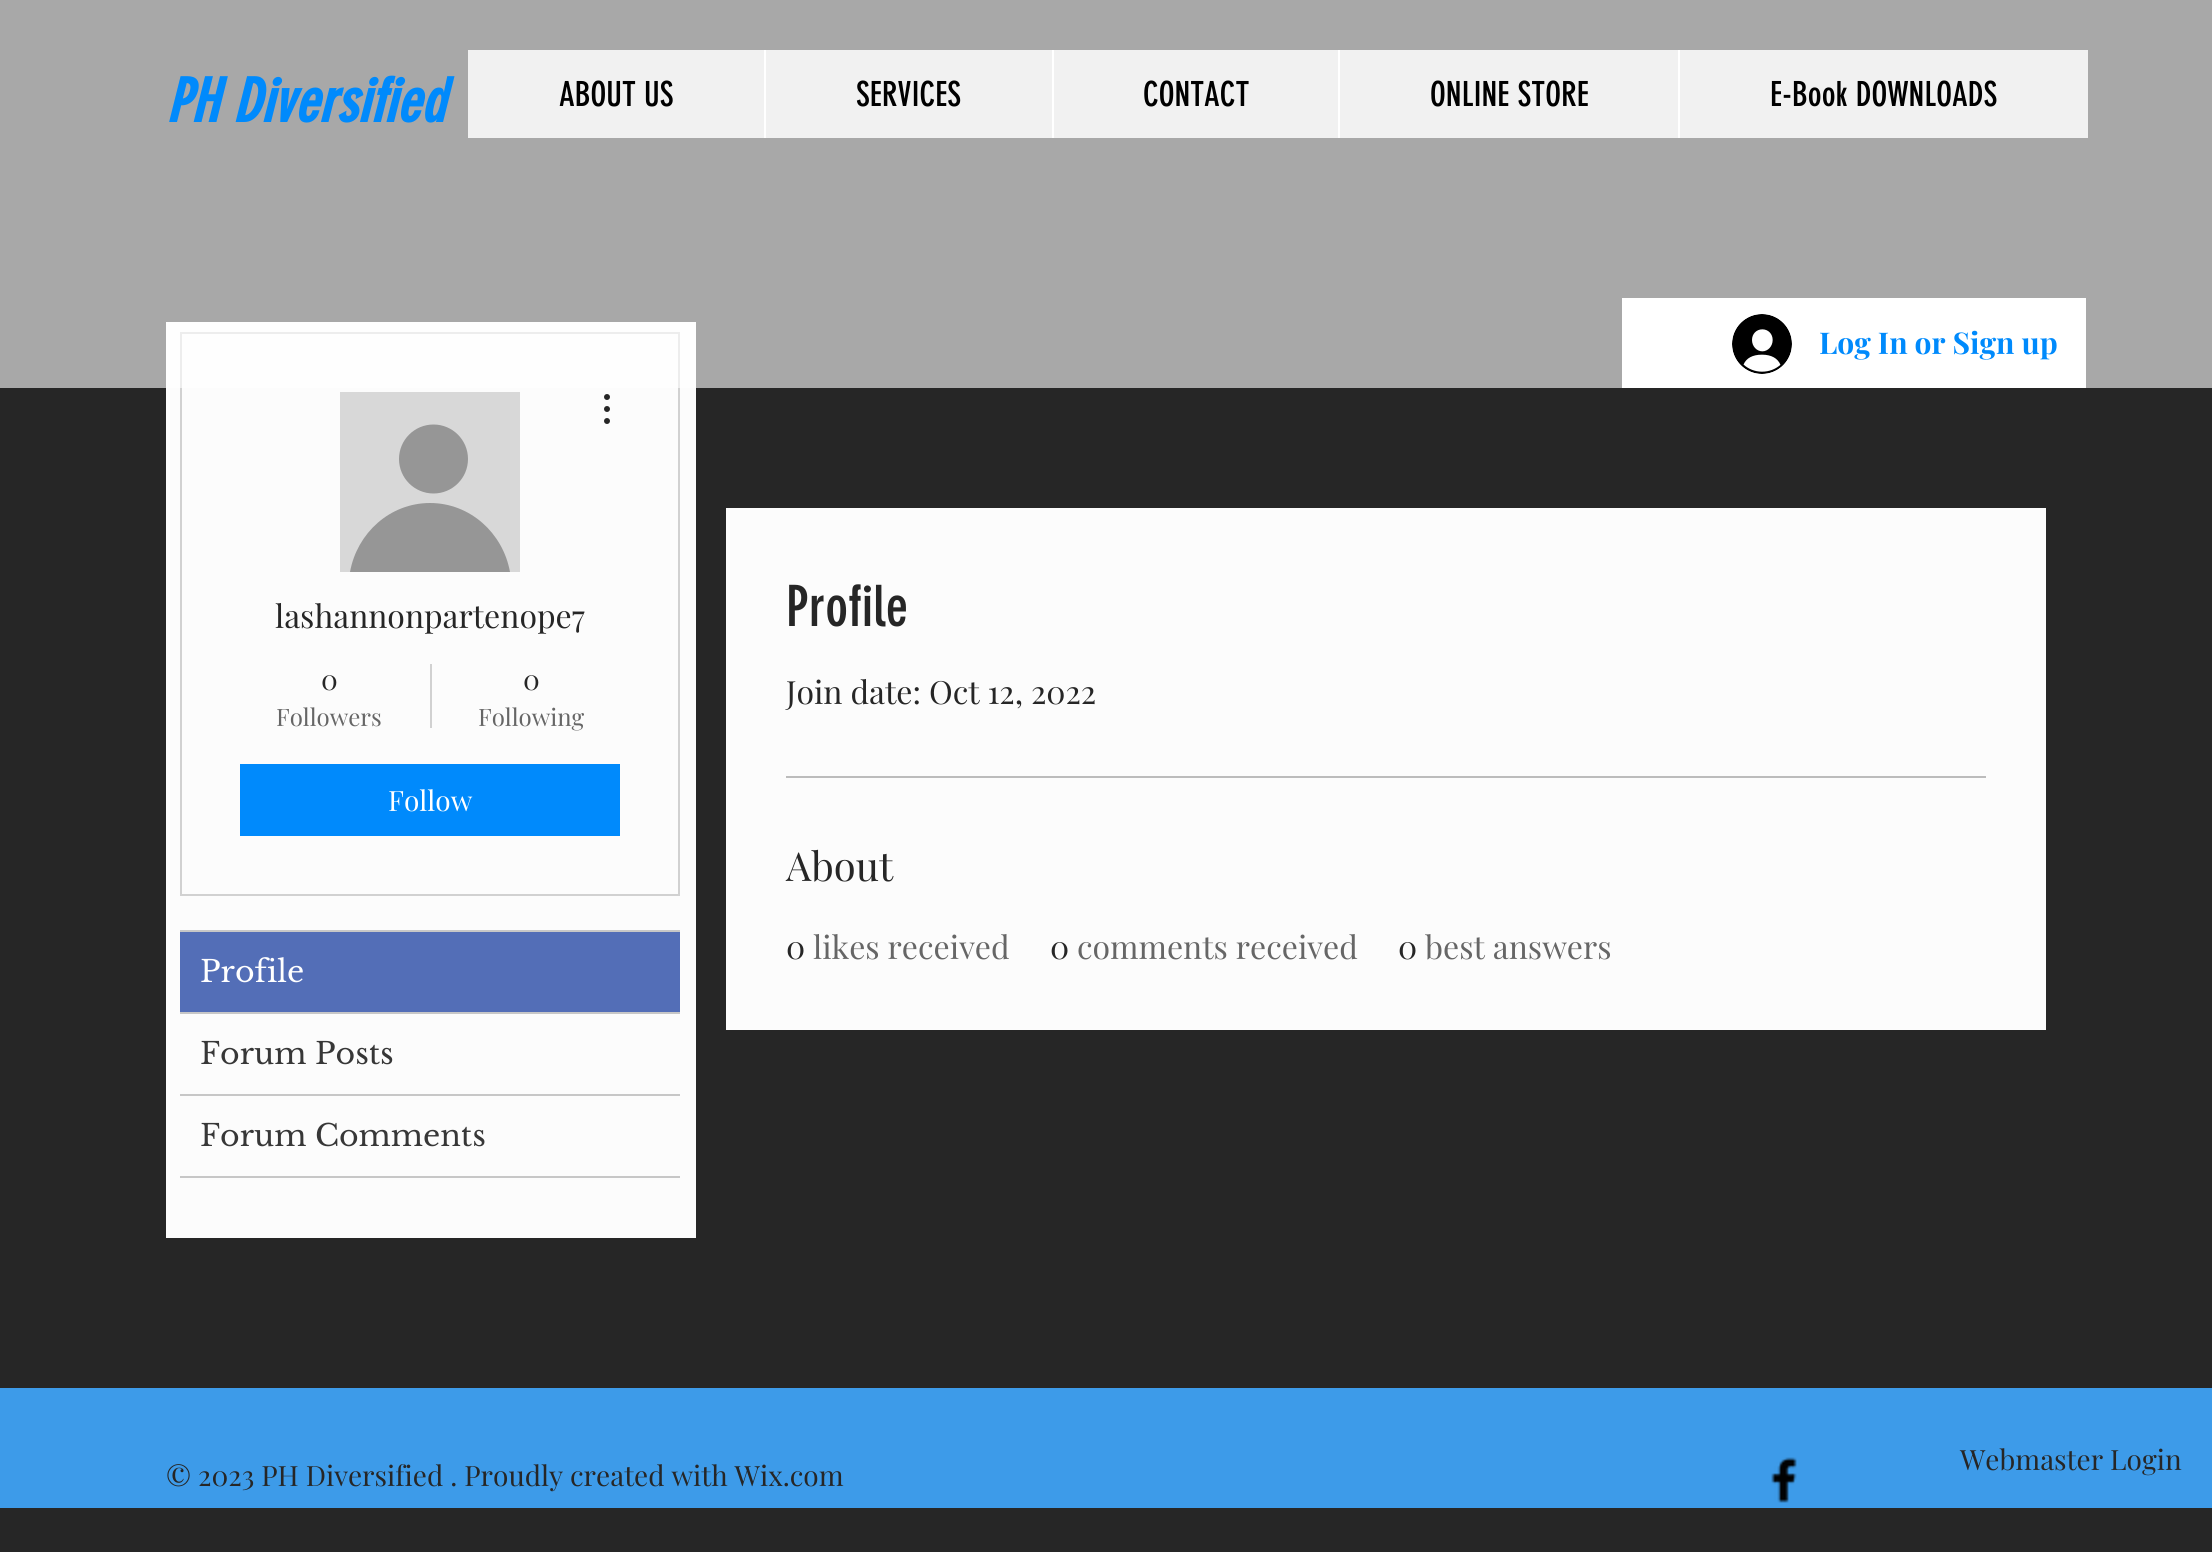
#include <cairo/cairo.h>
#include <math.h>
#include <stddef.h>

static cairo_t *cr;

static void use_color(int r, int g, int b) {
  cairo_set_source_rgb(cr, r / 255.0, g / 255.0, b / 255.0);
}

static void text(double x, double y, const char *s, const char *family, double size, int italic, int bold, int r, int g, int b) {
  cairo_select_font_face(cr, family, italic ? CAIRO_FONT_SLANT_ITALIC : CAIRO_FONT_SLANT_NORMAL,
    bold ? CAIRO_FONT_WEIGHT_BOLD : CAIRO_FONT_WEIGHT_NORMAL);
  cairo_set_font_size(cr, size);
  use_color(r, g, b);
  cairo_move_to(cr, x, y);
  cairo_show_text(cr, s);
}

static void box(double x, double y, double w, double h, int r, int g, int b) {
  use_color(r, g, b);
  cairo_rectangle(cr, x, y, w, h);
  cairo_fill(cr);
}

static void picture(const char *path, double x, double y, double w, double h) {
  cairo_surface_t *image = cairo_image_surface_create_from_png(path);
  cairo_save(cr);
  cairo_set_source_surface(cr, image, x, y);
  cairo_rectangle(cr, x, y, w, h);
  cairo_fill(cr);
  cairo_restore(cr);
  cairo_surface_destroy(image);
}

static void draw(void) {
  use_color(38, 38, 38);
  cairo_paint(cr);
  box(166, 322, 530, 916, 252, 252, 252);
  cairo_rectangle(cr, 181, 333, 498, 562);
  use_color(209, 209, 209);
  cairo_stroke(cr);
  cairo_set_source_rgba(cr, 1, 1, 1, 0.6);
  cairo_rectangle(cr, 0, 0, 2212, 388);
  cairo_fill(cr);
  box(468, 50, 1620, 88, 241, 241, 241);
  box(764, 50, 2, 88, 255, 255, 255);
  box(1052, 50, 2, 88, 255, 255, 255);
  box(1338, 50, 2, 88, 255, 255, 255);
  box(1678, 50, 2, 88, 255, 255, 255);
  box(1622, 298, 464, 90, 255, 255, 255);
  picture("img_01.png", 1732, 314, 60, 60);
  box(340, 392, 180, 180, 216, 216, 216);
  use_color(150, 150, 150);
  cairo_arc(cr, 433.5, 459, 34.5, 0, 2 * M_PI);
  cairo_fill(cr);
  cairo_new_path(cr);
  cairo_move_to(cr, 510, 572);
  cairo_curve_to(cr, 503, 533, 470, 503, 430, 503);
  cairo_curve_to(cr, 390, 503, 357, 533, 350, 572);
  cairo_close_path(cr);
  cairo_fill(cr);
  picture("img_02.png", 604, 394, 6, 30);
  box(430, 664, 2, 64, 209, 209, 209);
  box(240, 764, 380, 72, 0, 138, 252);
  box(180, 930, 500, 2, 199, 199, 199);
  box(180, 1176, 500, 2, 199, 199, 199);
  box(180, 1012, 500, 2, 199, 199, 199);
  box(180, 932, 500, 80, 83, 110, 183);
  box(180, 1094, 500, 2, 199, 199, 199);
  box(726, 508, 1320, 522, 252, 252, 252);
  box(786, 776, 1200, 2, 188, 188, 188);
  box(0, 1388, 2212, 120, 61, 155, 233);
  picture("img_03.png", 1771, 1457, 26, 46);
  text(166, 122, "PH Diversified", "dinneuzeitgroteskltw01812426", 60, 1, 1, 0, 138, 252);
  text(559, 106, "ABOUT US", "dinneuzeitgroteskltw01812426", 34, 0, 0, 0, 0, 0);
  text(856, 106, "SERVICES", "dinneuzeitgroteskltw01812426", 34, 0, 0, 0, 0, 0);
  text(1143, 106, "CONTACT", "dinneuzeitgroteskltw01812426", 34, 0, 0, 0, 0, 0);
  text(1430, 106, "ONLINE STORE", "dinneuzeitgroteskltw01812426", 34, 0, 0, 0, 0, 0);
  text(1770, 106, "E-Book DOWNLOADS", "dinneuzeitgroteskltw01812426", 34, 0, 0, 0, 0, 0);
  text(1819, 354, "Log In or Sign up", "Playfair Display", 30, 0, 1, 0, 138, 252);
  text(275, 628, "lashannonpartenope7", "Playfair Display", 32, 0, 0, 38, 38, 38);
  text(321, 690, "0", "Playfair Display", 28, 0, 0, 38, 38, 38);
  text(276, 726, "Followers", "Playfair Display", 24, 0, 0, 102, 102, 102);
  text(523, 690, "0", "Playfair Display", 28, 0, 0, 38, 38, 38);
  text(478, 726, "Following", "Playfair Display", 24, 0, 0, 102, 102, 102);
  text(388, 811, "Follow", "Playfair Display", 28, 0, 0, 255, 255, 255);
  text(200, 982, "Profile", "Libre Baskerville", 30, 0, 0, 255, 255, 255);
  text(200, 1064, "Forum Posts", "Libre Baskerville", 30, 0, 0, 55, 55, 55);
  text(200, 1146, "Forum Comments", "Libre Baskerville", 30, 0, 0, 55, 55, 55);
  text(786, 626, "Profile", "dinneuzeitgroteskltw01812426", 56, 0, 0, 38, 38, 38);
  text(786, 704, "Join date: Oct 12, 2022", "Playfair Display", 32, 0, 0, 38, 38, 38);
  text(786, 881, "About", "Playfair Display", 40, 0, 0, 38, 38, 38);
  text(786, 959, "0", "Playfair Display", 32, 0, 0, 38, 38, 38);
  text(813, 959, "likes received", "Playfair Display", 32, 0, 0, 102, 102, 102);
  text(1050, 959, "0", "Playfair Display", 32, 0, 0, 38, 38, 38);
  text(1077, 959, "comments received", "Playfair Display", 32, 0, 0, 102, 102, 102);
  text(1398, 959, "0", "Playfair Display", 32, 0, 0, 38, 38, 38);
  text(1425, 959, "best answers", "Playfair Display", 32, 0, 0, 102, 102, 102);
  text(166, 1486, "© 2023 PH Diversified . Proudly created with Wix.com", "Playfair Display", 28, 0, 0, 38, 38, 38);
  text(1960, 1470, "Webmaster Login", "Playfair Display", 28, 0, 0, 38, 38, 38);
}

int main(void) {
  cairo_surface_t *surface = cairo_image_surface_create(CAIRO_FORMAT_RGB24, 2212, 1552);
  cr = cairo_create(surface);
  cairo_font_options_t *options = cairo_font_options_create();
  cairo_font_options_set_hint_metrics(options, CAIRO_HINT_METRICS_OFF);
  cairo_font_options_set_hint_style(options, CAIRO_HINT_STYLE_NONE);
  cairo_set_font_options(cr, options);
  cairo_set_miter_limit(cr, 4);
  draw();
  cairo_surface_write_to_png(surface, "out.png");
  cairo_font_options_destroy(options);
  cairo_destroy(cr);
  cairo_surface_destroy(surface);
  return 0;
}
